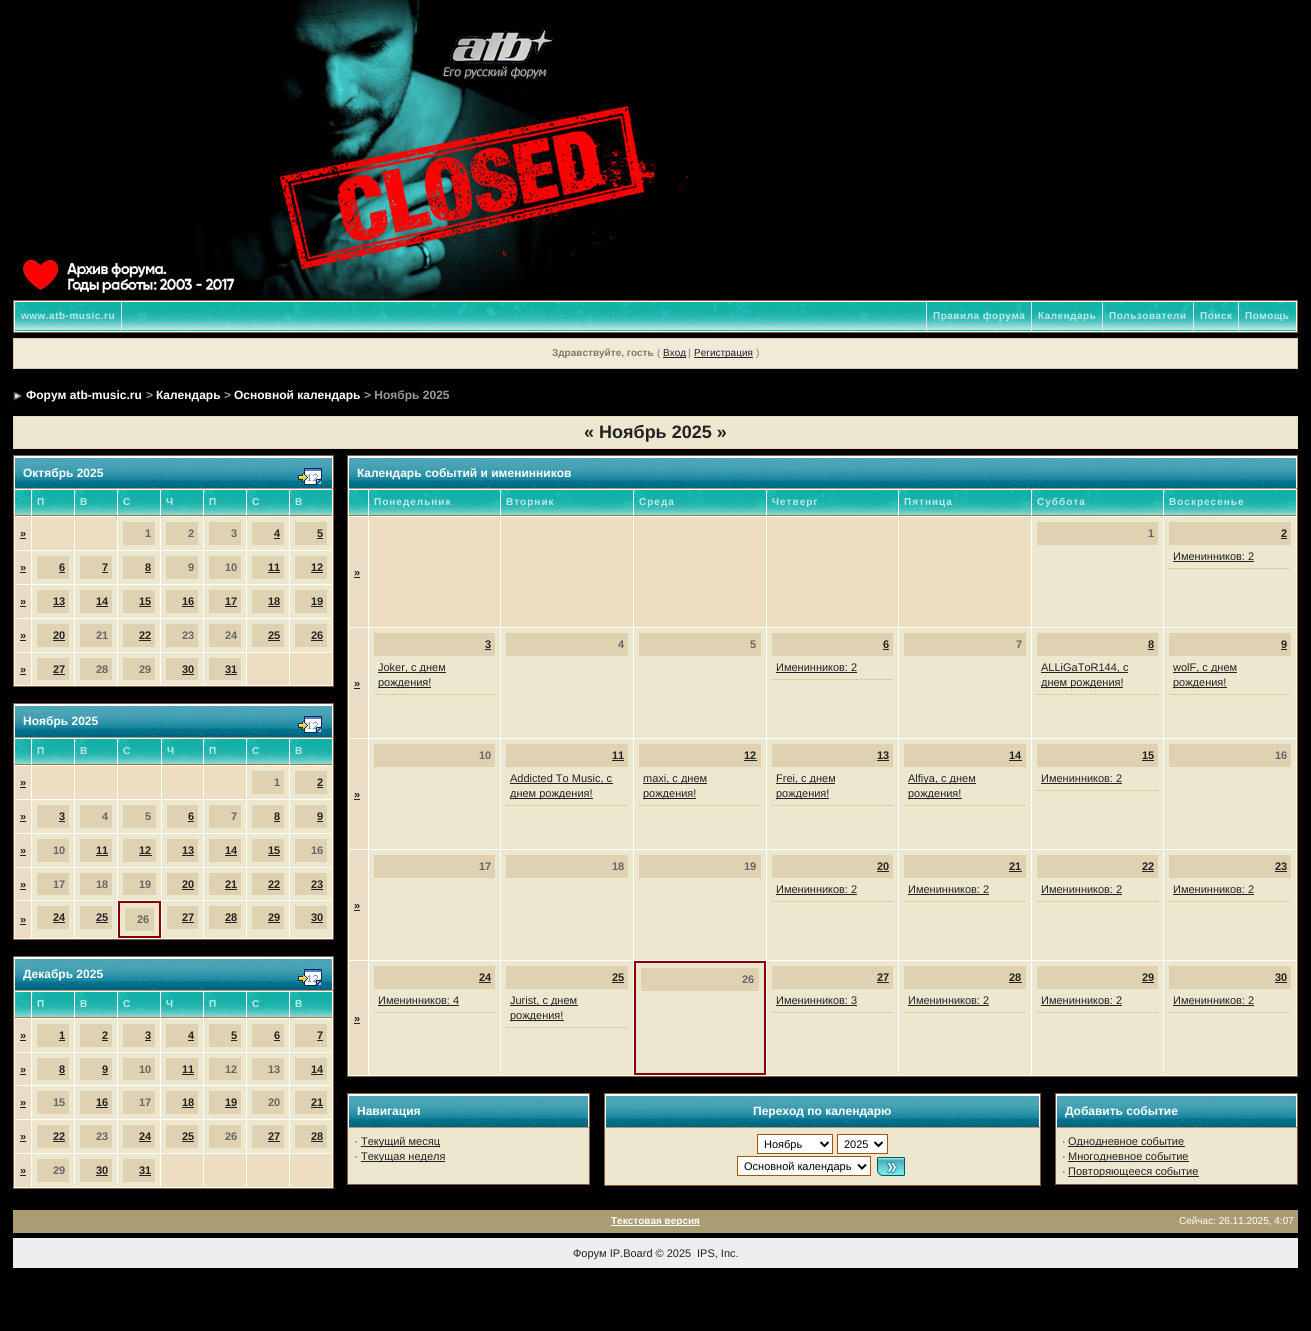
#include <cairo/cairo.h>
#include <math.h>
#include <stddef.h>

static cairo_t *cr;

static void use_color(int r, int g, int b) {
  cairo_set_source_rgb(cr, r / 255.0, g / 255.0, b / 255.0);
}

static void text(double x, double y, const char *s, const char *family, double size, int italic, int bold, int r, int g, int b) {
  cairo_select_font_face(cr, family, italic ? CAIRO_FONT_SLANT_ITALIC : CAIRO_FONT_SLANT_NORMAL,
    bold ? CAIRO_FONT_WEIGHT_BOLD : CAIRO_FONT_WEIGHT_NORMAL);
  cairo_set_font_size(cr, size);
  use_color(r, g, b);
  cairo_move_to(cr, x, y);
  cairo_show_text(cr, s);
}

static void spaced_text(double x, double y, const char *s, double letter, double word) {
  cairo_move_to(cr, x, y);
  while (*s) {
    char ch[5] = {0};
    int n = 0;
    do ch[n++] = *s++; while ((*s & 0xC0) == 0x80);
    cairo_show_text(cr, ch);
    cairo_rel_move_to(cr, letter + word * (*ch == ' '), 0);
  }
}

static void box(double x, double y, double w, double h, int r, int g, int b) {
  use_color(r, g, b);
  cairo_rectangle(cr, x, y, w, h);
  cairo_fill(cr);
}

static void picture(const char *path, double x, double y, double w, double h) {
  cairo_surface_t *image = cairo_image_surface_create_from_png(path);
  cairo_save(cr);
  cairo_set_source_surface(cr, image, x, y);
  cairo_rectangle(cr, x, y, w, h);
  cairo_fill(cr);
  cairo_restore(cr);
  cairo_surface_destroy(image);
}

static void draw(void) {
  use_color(0, 0, 0);
  cairo_paint(cr);
  picture("img_01.png", 21, 0, 667, 299);
  picture("img_02.png", 443, 29, 111, 51);
  box(14, 301, 1283, 1, 255, 255, 255);
  cairo_rectangle(cr, 13.5, 300.5, 1284, 32);
  use_color(129, 95, 62);
  cairo_set_line_width(cr, 1);
  cairo_stroke(cr);
  picture("img_03.png", 15, 302, 1281, 29);
  box(1296, 302, 1, 30, 255, 255, 255);
  box(14, 331, 1283, 1, 255, 255, 255);
  box(14, 302, 1, 30, 255, 255, 255);
  box(121, 302, 1, 29, 220, 227, 238);
  box(926, 302, 1, 29, 220, 227, 238);
  box(1031, 302, 1, 29, 220, 227, 238);
  box(1102, 302, 1, 29, 220, 227, 238);
  box(1193, 302, 1, 29, 220, 227, 238);
  box(1238, 302, 1, 29, 220, 227, 238);
  use_color(243, 233, 216);
  cairo_rectangle(cr, 13.5, 338.5, 1284, 30);
  cairo_fill_preserve(cr);
  use_color(215, 200, 180);
  cairo_stroke(cr);
  box(663, 357, 23, 1, 34, 34, 34);
  box(694, 357, 59, 1, 34, 34, 34);
  picture("img_04.png", 13, 391, 10, 10);
  use_color(237, 231, 208);
  cairo_rectangle(cr, 13.5, 416.5, 1284, 32);
  cairo_fill_preserve(cr);
  use_color(227, 220, 192);
  cairo_stroke(cr);
  use_color(255, 255, 255);
  cairo_rectangle(cr, 13.5, 455.5, 320, 231);
  cairo_fill_preserve(cr);
  use_color(129, 95, 62);
  cairo_stroke(cr);
  picture("img_05.png", 15, 458, 317, 30);
  box(14, 488, 319, 1, 171, 156, 115);
  box(14, 488, 1, 1, 255, 255, 255);
  picture("img_06.png", 298, 468, 24, 17);
  picture("img_07.png", 15, 490, 16, 25);
  box(15, 515, 16, 1, 165, 120, 43);
  picture("img_08.png", 32, 490, 42, 25);
  box(32, 515, 42, 1, 165, 120, 43);
  picture("img_08.png", 75, 490, 42, 25);
  box(75, 515, 42, 1, 165, 120, 43);
  picture("img_08.png", 118, 490, 42, 25);
  box(118, 515, 42, 1, 165, 120, 43);
  picture("img_08.png", 161, 490, 42, 25);
  box(161, 515, 42, 1, 165, 120, 43);
  picture("img_08.png", 204, 490, 42, 25);
  box(204, 515, 42, 1, 165, 120, 43);
  picture("img_08.png", 247, 490, 42, 25);
  box(247, 515, 42, 1, 165, 120, 43);
  picture("img_08.png", 290, 490, 42, 25);
  box(290, 515, 42, 1, 165, 120, 43);
  box(15, 517, 16, 33, 235, 220, 197);
  box(20, 538, 6, 1, 34, 34, 34);
  box(32, 517, 42, 33, 237, 221, 193);
  box(75, 517, 42, 33, 237, 221, 193);
  box(118, 517, 42, 33, 237, 231, 208);
  box(123, 522, 32, 23, 223, 210, 179);
  box(161, 517, 42, 33, 237, 231, 208);
  box(166, 522, 32, 23, 223, 210, 179);
  box(204, 517, 42, 33, 237, 231, 208);
  box(209, 522, 32, 23, 223, 210, 179);
  box(247, 517, 42, 33, 237, 231, 208);
  box(252, 522, 32, 23, 223, 210, 179);
  box(274, 538, 6, 1, 34, 34, 34);
  box(290, 517, 42, 33, 237, 231, 208);
  box(295, 522, 32, 23, 223, 210, 179);
  box(317, 538, 6, 1, 34, 34, 34);
  box(15, 551, 16, 33, 235, 220, 197);
  box(20, 572, 6, 1, 34, 34, 34);
  box(32, 551, 42, 33, 237, 231, 208);
  box(37, 556, 32, 23, 223, 210, 179);
  box(59, 572, 6, 1, 34, 34, 34);
  box(75, 551, 42, 33, 237, 231, 208);
  box(80, 556, 32, 23, 223, 210, 179);
  box(102, 572, 6, 1, 34, 34, 34);
  box(118, 551, 42, 33, 237, 231, 208);
  box(123, 556, 32, 23, 223, 210, 179);
  box(145, 572, 6, 1, 34, 34, 34);
  box(161, 551, 42, 33, 237, 231, 208);
  box(166, 556, 32, 23, 223, 210, 179);
  box(204, 551, 42, 33, 237, 231, 208);
  box(209, 556, 32, 23, 223, 210, 179);
  box(247, 551, 42, 33, 237, 231, 208);
  box(252, 556, 32, 23, 223, 210, 179);
  box(268, 572, 12, 1, 34, 34, 34);
  box(290, 551, 42, 33, 237, 231, 208);
  box(295, 556, 32, 23, 223, 210, 179);
  box(311, 572, 12, 1, 34, 34, 34);
  box(15, 585, 16, 33, 235, 220, 197);
  box(20, 606, 6, 1, 34, 34, 34);
  box(32, 585, 42, 33, 237, 231, 208);
  box(37, 590, 32, 23, 223, 210, 179);
  box(53, 606, 12, 1, 34, 34, 34);
  box(75, 585, 42, 33, 237, 231, 208);
  box(80, 590, 32, 23, 223, 210, 179);
  box(96, 606, 12, 1, 34, 34, 34);
  box(118, 585, 42, 33, 237, 231, 208);
  box(123, 590, 32, 23, 223, 210, 179);
  box(139, 606, 12, 1, 34, 34, 34);
  box(161, 585, 42, 33, 237, 231, 208);
  box(166, 590, 32, 23, 223, 210, 179);
  box(182, 606, 12, 1, 34, 34, 34);
  box(204, 585, 42, 33, 237, 231, 208);
  box(209, 590, 32, 23, 223, 210, 179);
  box(225, 606, 12, 1, 34, 34, 34);
  box(247, 585, 42, 33, 237, 231, 208);
  box(252, 590, 32, 23, 223, 210, 179);
  box(268, 606, 12, 1, 34, 34, 34);
  box(290, 585, 42, 33, 237, 231, 208);
  box(295, 590, 32, 23, 223, 210, 179);
  box(311, 606, 12, 1, 34, 34, 34);
  box(15, 619, 16, 33, 235, 220, 197);
  box(20, 640, 6, 1, 34, 34, 34);
  box(32, 619, 42, 33, 237, 231, 208);
  box(37, 624, 32, 23, 223, 210, 179);
  box(53, 640, 12, 1, 34, 34, 34);
  box(75, 619, 42, 33, 237, 231, 208);
  box(80, 624, 32, 23, 223, 210, 179);
  box(118, 619, 42, 33, 237, 231, 208);
  box(123, 624, 32, 23, 223, 210, 179);
  box(139, 640, 12, 1, 34, 34, 34);
  box(161, 619, 42, 33, 237, 231, 208);
  box(166, 624, 32, 23, 223, 210, 179);
  box(204, 619, 42, 33, 237, 231, 208);
  box(209, 624, 32, 23, 223, 210, 179);
  box(247, 619, 42, 33, 237, 231, 208);
  box(252, 624, 32, 23, 223, 210, 179);
  box(268, 640, 12, 1, 34, 34, 34);
  box(290, 619, 42, 33, 237, 231, 208);
  box(295, 624, 32, 23, 223, 210, 179);
  box(311, 640, 12, 1, 34, 34, 34);
  box(15, 653, 16, 32, 235, 220, 197);
  box(20, 674, 6, 1, 34, 34, 34);
  box(32, 653, 42, 32, 237, 231, 208);
  box(37, 658, 32, 22, 223, 210, 179);
  box(53, 674, 12, 1, 34, 34, 34);
  box(75, 653, 42, 32, 237, 231, 208);
  box(80, 658, 32, 22, 223, 210, 179);
  box(118, 653, 42, 32, 237, 231, 208);
  box(123, 658, 32, 22, 223, 210, 179);
  box(161, 653, 42, 32, 237, 231, 208);
  box(166, 658, 32, 22, 223, 210, 179);
  box(182, 674, 12, 1, 34, 34, 34);
  box(204, 653, 42, 32, 237, 231, 208);
  box(209, 658, 32, 22, 223, 210, 179);
  box(225, 674, 12, 1, 34, 34, 34);
  box(247, 653, 42, 32, 237, 221, 193);
  box(290, 653, 42, 32, 237, 221, 193);
  use_color(255, 255, 255);
  cairo_rectangle(cr, 13.5, 703.5, 320, 236);
  cairo_fill_preserve(cr);
  use_color(129, 95, 62);
  cairo_stroke(cr);
  picture("img_09.png", 15, 706, 317, 31);
  box(14, 737, 319, 1, 171, 156, 115);
  box(14, 737, 1, 1, 255, 255, 255);
  picture("img_06.png", 298, 716, 24, 17);
  picture("img_07.png", 15, 739, 16, 25);
  box(15, 764, 16, 1, 165, 120, 43);
  picture("img_10.png", 32, 739, 42, 25);
  box(32, 764, 42, 1, 165, 120, 43);
  picture("img_10.png", 75, 739, 42, 25);
  box(75, 764, 42, 1, 165, 120, 43);
  picture("img_11.png", 118, 739, 43, 25);
  box(118, 764, 43, 1, 165, 120, 43);
  picture("img_12.png", 162, 739, 41, 25);
  box(162, 764, 41, 1, 165, 120, 43);
  picture("img_10.png", 204, 739, 42, 25);
  box(204, 764, 42, 1, 165, 120, 43);
  picture("img_10.png", 247, 739, 42, 25);
  box(247, 764, 42, 1, 165, 120, 43);
  picture("img_10.png", 290, 739, 42, 25);
  box(290, 764, 42, 1, 165, 120, 43);
  box(15, 766, 16, 33, 235, 220, 197);
  box(20, 787, 6, 1, 34, 34, 34);
  box(32, 766, 42, 33, 237, 221, 193);
  box(75, 766, 42, 33, 237, 221, 193);
  box(118, 766, 43, 33, 237, 221, 193);
  box(162, 766, 41, 33, 237, 221, 193);
  box(204, 766, 42, 33, 237, 221, 193);
  box(247, 766, 42, 33, 237, 231, 208);
  box(252, 771, 32, 23, 223, 210, 179);
  box(290, 766, 42, 33, 237, 231, 208);
  box(295, 771, 32, 23, 223, 210, 179);
  box(317, 787, 6, 1, 34, 34, 34);
  box(15, 800, 16, 33, 235, 220, 197);
  box(20, 821, 6, 1, 34, 34, 34);
  box(32, 800, 42, 33, 237, 231, 208);
  box(37, 805, 32, 23, 223, 210, 179);
  box(59, 821, 6, 1, 34, 34, 34);
  box(75, 800, 42, 33, 237, 231, 208);
  box(80, 805, 32, 23, 223, 210, 179);
  box(118, 800, 43, 33, 237, 231, 208);
  box(123, 805, 33, 23, 223, 210, 179);
  box(162, 800, 41, 33, 237, 231, 208);
  box(167, 805, 31, 23, 223, 210, 179);
  box(188, 821, 6, 1, 34, 34, 34);
  box(204, 800, 42, 33, 237, 231, 208);
  box(209, 805, 32, 23, 223, 210, 179);
  box(247, 800, 42, 33, 237, 231, 208);
  box(252, 805, 32, 23, 223, 210, 179);
  box(274, 821, 6, 1, 34, 34, 34);
  box(290, 800, 42, 33, 237, 231, 208);
  box(295, 805, 32, 23, 223, 210, 179);
  box(317, 821, 6, 1, 34, 34, 34);
  box(15, 834, 16, 33, 235, 220, 197);
  box(20, 855, 6, 1, 34, 34, 34);
  box(32, 834, 42, 33, 237, 231, 208);
  box(37, 839, 32, 23, 223, 210, 179);
  box(75, 834, 42, 33, 237, 231, 208);
  box(80, 839, 32, 23, 223, 210, 179);
  box(96, 855, 12, 1, 34, 34, 34);
  box(118, 834, 43, 33, 237, 231, 208);
  box(123, 839, 33, 23, 223, 210, 179);
  box(139, 855, 13, 1, 34, 34, 34);
  box(162, 834, 41, 33, 237, 231, 208);
  box(167, 839, 31, 23, 223, 210, 179);
  box(182, 855, 12, 1, 34, 34, 34);
  box(204, 834, 42, 33, 237, 231, 208);
  box(209, 839, 32, 23, 223, 210, 179);
  box(225, 855, 12, 1, 34, 34, 34);
  box(247, 834, 42, 33, 237, 231, 208);
  box(252, 839, 32, 23, 223, 210, 179);
  box(268, 855, 12, 1, 34, 34, 34);
  box(290, 834, 42, 33, 237, 231, 208);
  box(295, 839, 32, 23, 223, 210, 179);
  box(15, 868, 16, 32, 235, 220, 197);
  box(20, 889, 6, 1, 34, 34, 34);
  box(32, 868, 42, 32, 237, 231, 208);
  box(37, 873, 32, 22, 223, 210, 179);
  box(75, 868, 42, 32, 237, 231, 208);
  box(80, 873, 32, 22, 223, 210, 179);
  box(118, 868, 43, 32, 237, 231, 208);
  box(123, 873, 33, 22, 223, 210, 179);
  box(162, 868, 41, 32, 237, 231, 208);
  box(167, 873, 31, 22, 223, 210, 179);
  box(182, 889, 12, 1, 34, 34, 34);
  box(204, 868, 42, 32, 237, 231, 208);
  box(209, 873, 32, 22, 223, 210, 179);
  box(225, 889, 12, 1, 34, 34, 34);
  box(247, 868, 42, 32, 237, 231, 208);
  box(252, 873, 32, 22, 223, 210, 179);
  box(268, 889, 12, 1, 34, 34, 34);
  box(290, 868, 42, 32, 237, 231, 208);
  box(295, 873, 32, 22, 223, 210, 179);
  box(311, 889, 12, 1, 34, 34, 34);
  box(15, 901, 16, 37, 235, 220, 197);
  box(20, 924, 6, 1, 34, 34, 34);
  box(32, 901, 42, 37, 237, 231, 208);
  box(37, 906, 32, 23, 223, 210, 179);
  box(53, 922, 12, 1, 34, 34, 34);
  box(75, 901, 42, 37, 237, 231, 208);
  box(80, 906, 32, 23, 223, 210, 179);
  box(96, 922, 12, 1, 34, 34, 34);
  use_color(237, 231, 208);
  cairo_rectangle(cr, 119, 902, 41, 35);
  cairo_fill_preserve(cr);
  use_color(139, 0, 0);
  cairo_set_line_width(cr, 2);
  cairo_stroke(cr);
  box(125, 908, 29, 23, 223, 210, 179);
  box(162, 901, 41, 37, 237, 231, 208);
  box(167, 906, 31, 23, 223, 210, 179);
  box(182, 922, 12, 1, 34, 34, 34);
  box(204, 901, 42, 37, 237, 231, 208);
  box(209, 906, 32, 23, 223, 210, 179);
  box(225, 922, 12, 1, 34, 34, 34);
  box(247, 901, 42, 37, 237, 231, 208);
  box(252, 906, 32, 23, 223, 210, 179);
  box(268, 922, 12, 1, 34, 34, 34);
  box(290, 901, 42, 37, 237, 231, 208);
  box(295, 906, 32, 23, 223, 210, 179);
  box(311, 922, 12, 1, 34, 34, 34);
  use_color(255, 255, 255);
  cairo_rectangle(cr, 13.5, 956.5, 320, 232);
  cairo_fill_preserve(cr);
  use_color(129, 95, 62);
  cairo_set_line_width(cr, 1);
  cairo_stroke(cr);
  picture("img_09.png", 15, 959, 317, 31);
  box(14, 990, 319, 1, 171, 156, 115);
  box(14, 990, 1, 1, 255, 255, 255);
  picture("img_06.png", 298, 969, 24, 17);
  picture("img_07.png", 15, 992, 16, 25);
  box(15, 1017, 16, 1, 165, 120, 43);
  picture("img_08.png", 32, 992, 42, 25);
  box(32, 1017, 42, 1, 165, 120, 43);
  picture("img_08.png", 75, 992, 42, 25);
  box(75, 1017, 42, 1, 165, 120, 43);
  picture("img_08.png", 118, 992, 42, 25);
  box(118, 1017, 42, 1, 165, 120, 43);
  picture("img_08.png", 161, 992, 42, 25);
  box(161, 1017, 42, 1, 165, 120, 43);
  picture("img_08.png", 204, 992, 42, 25);
  box(204, 1017, 42, 1, 165, 120, 43);
  picture("img_08.png", 247, 992, 42, 25);
  box(247, 1017, 42, 1, 165, 120, 43);
  picture("img_08.png", 290, 992, 42, 25);
  box(290, 1017, 42, 1, 165, 120, 43);
  box(15, 1019, 16, 33, 235, 220, 197);
  box(20, 1040, 6, 1, 34, 34, 34);
  box(32, 1019, 42, 33, 237, 231, 208);
  box(37, 1024, 32, 23, 223, 210, 179);
  box(59, 1040, 6, 1, 34, 34, 34);
  box(75, 1019, 42, 33, 237, 231, 208);
  box(80, 1024, 32, 23, 223, 210, 179);
  box(102, 1040, 6, 1, 34, 34, 34);
  box(118, 1019, 42, 33, 237, 231, 208);
  box(123, 1024, 32, 23, 223, 210, 179);
  box(145, 1040, 6, 1, 34, 34, 34);
  box(161, 1019, 42, 33, 237, 231, 208);
  box(166, 1024, 32, 23, 223, 210, 179);
  box(188, 1040, 6, 1, 34, 34, 34);
  box(204, 1019, 42, 33, 237, 231, 208);
  box(209, 1024, 32, 23, 223, 210, 179);
  box(231, 1040, 6, 1, 34, 34, 34);
  box(247, 1019, 42, 33, 237, 231, 208);
  box(252, 1024, 32, 23, 223, 210, 179);
  box(274, 1040, 6, 1, 34, 34, 34);
  box(290, 1019, 42, 33, 237, 231, 208);
  box(295, 1024, 32, 23, 223, 210, 179);
  box(317, 1040, 6, 1, 34, 34, 34);
  box(15, 1053, 16, 32, 235, 220, 197);
  box(20, 1074, 6, 1, 34, 34, 34);
  box(32, 1053, 42, 32, 237, 231, 208);
  box(37, 1058, 32, 22, 223, 210, 179);
  box(59, 1074, 6, 1, 34, 34, 34);
  box(75, 1053, 42, 32, 237, 231, 208);
  box(80, 1058, 32, 22, 223, 210, 179);
  box(102, 1074, 6, 1, 34, 34, 34);
  box(118, 1053, 42, 32, 237, 231, 208);
  box(123, 1058, 32, 22, 223, 210, 179);
  box(161, 1053, 42, 32, 237, 231, 208);
  box(166, 1058, 32, 22, 223, 210, 179);
  box(182, 1074, 12, 1, 34, 34, 34);
  box(204, 1053, 42, 32, 237, 231, 208);
  box(209, 1058, 32, 22, 223, 210, 179);
  box(247, 1053, 42, 32, 237, 231, 208);
  box(252, 1058, 32, 22, 223, 210, 179);
  box(290, 1053, 42, 32, 237, 231, 208);
  box(295, 1058, 32, 22, 223, 210, 179);
  box(311, 1074, 12, 1, 34, 34, 34);
  box(15, 1086, 16, 33, 235, 220, 197);
  box(20, 1107, 6, 1, 34, 34, 34);
  box(32, 1086, 42, 33, 237, 231, 208);
  box(37, 1091, 32, 23, 223, 210, 179);
  box(75, 1086, 42, 33, 237, 231, 208);
  box(80, 1091, 32, 23, 223, 210, 179);
  box(96, 1107, 12, 1, 34, 34, 34);
  box(118, 1086, 42, 33, 237, 231, 208);
  box(123, 1091, 32, 23, 223, 210, 179);
  box(161, 1086, 42, 33, 237, 231, 208);
  box(166, 1091, 32, 23, 223, 210, 179);
  box(182, 1107, 12, 1, 34, 34, 34);
  box(204, 1086, 42, 33, 237, 231, 208);
  box(209, 1091, 32, 23, 223, 210, 179);
  box(225, 1107, 12, 1, 34, 34, 34);
  box(247, 1086, 42, 33, 237, 231, 208);
  box(252, 1091, 32, 23, 223, 210, 179);
  box(290, 1086, 42, 33, 237, 231, 208);
  box(295, 1091, 32, 23, 223, 210, 179);
  box(311, 1107, 12, 1, 34, 34, 34);
  box(15, 1120, 16, 33, 235, 220, 197);
  box(20, 1141, 6, 1, 34, 34, 34);
  box(32, 1120, 42, 33, 237, 231, 208);
  box(37, 1125, 32, 23, 223, 210, 179);
  box(53, 1141, 12, 1, 34, 34, 34);
  box(75, 1120, 42, 33, 237, 231, 208);
  box(80, 1125, 32, 23, 223, 210, 179);
  box(118, 1120, 42, 33, 237, 231, 208);
  box(123, 1125, 32, 23, 223, 210, 179);
  box(139, 1141, 12, 1, 34, 34, 34);
  box(161, 1120, 42, 33, 237, 231, 208);
  box(166, 1125, 32, 23, 223, 210, 179);
  box(182, 1141, 12, 1, 34, 34, 34);
  box(204, 1120, 42, 33, 237, 231, 208);
  box(209, 1125, 32, 23, 223, 210, 179);
  box(247, 1120, 42, 33, 237, 231, 208);
  box(252, 1125, 32, 23, 223, 210, 179);
  box(268, 1141, 12, 1, 34, 34, 34);
  box(290, 1120, 42, 33, 237, 231, 208);
  box(295, 1125, 32, 23, 223, 210, 179);
  box(311, 1141, 12, 1, 34, 34, 34);
  box(15, 1154, 16, 33, 235, 220, 197);
  box(20, 1175, 6, 1, 34, 34, 34);
  box(32, 1154, 42, 33, 237, 231, 208);
  box(37, 1159, 32, 23, 223, 210, 179);
  box(75, 1154, 42, 33, 237, 231, 208);
  box(80, 1159, 32, 23, 223, 210, 179);
  box(96, 1175, 12, 1, 34, 34, 34);
  box(118, 1154, 42, 33, 237, 231, 208);
  box(123, 1159, 32, 23, 223, 210, 179);
  box(139, 1175, 12, 1, 34, 34, 34);
  box(161, 1154, 42, 33, 237, 221, 193);
  box(204, 1154, 42, 33, 237, 221, 193);
  box(247, 1154, 42, 33, 237, 221, 193);
  box(290, 1154, 42, 33, 237, 221, 193);
  use_color(255, 255, 255);
  cairo_rectangle(cr, 347.5, 455.5, 950, 621);
  cairo_fill_preserve(cr);
  use_color(129, 95, 62);
  cairo_stroke(cr);
  picture("img_13.png", 349, 458, 947, 30);
  box(348, 488, 949, 1, 171, 156, 115);
  box(348, 488, 1, 1, 255, 255, 255);
  picture("img_14.png", 349, 490, 19, 25);
  box(349, 515, 19, 1, 165, 120, 43);
  picture("img_15.png", 369, 490, 131, 25);
  box(369, 515, 131, 1, 165, 120, 43);
  picture("img_16.png", 501, 490, 132, 25);
  box(501, 515, 132, 1, 165, 120, 43);
  picture("img_16.png", 634, 490, 132, 25);
  box(634, 515, 132, 1, 165, 120, 43);
  picture("img_15.png", 767, 490, 131, 25);
  box(767, 515, 131, 1, 165, 120, 43);
  picture("img_16.png", 899, 490, 132, 25);
  box(899, 515, 132, 1, 165, 120, 43);
  picture("img_15.png", 1032, 490, 131, 25);
  box(1032, 515, 131, 1, 165, 120, 43);
  picture("img_17.png", 1164, 490, 132, 25);
  box(1164, 515, 132, 1, 165, 120, 43);
  box(369, 517, 131, 110, 237, 221, 193);
  box(501, 517, 132, 110, 237, 221, 193);
  box(634, 517, 132, 110, 237, 221, 193);
  box(767, 517, 131, 110, 237, 221, 193);
  box(899, 517, 132, 110, 237, 221, 193);
  box(1032, 517, 131, 110, 237, 231, 208);
  box(1037, 522, 121, 23, 223, 210, 179);
  box(1164, 517, 132, 110, 237, 231, 208);
  box(1169, 522, 122, 23, 223, 210, 179);
  box(1281, 538, 6, 1, 34, 34, 34);
  cairo_new_path(cr);
  cairo_move_to(cr, 1169, 568.5);
  cairo_line_to(cr, 1291, 568.5);
  use_color(219, 173, 114);
  cairo_set_dash(cr, (double[]){1, 1}, 2, 0);
  cairo_stroke(cr);
  box(1173, 561, 81, 1, 34, 34, 34);
  box(349, 517, 19, 110, 235, 220, 197);
  box(354, 577, 6, 1, 34, 34, 34);
  box(349, 628, 19, 110, 235, 220, 197);
  box(354, 688, 6, 1, 34, 34, 34);
  box(369, 628, 131, 110, 237, 231, 208);
  box(374, 633, 121, 23, 223, 210, 179);
  box(485, 649, 6, 1, 34, 34, 34);
  cairo_new_path(cr);
  cairo_move_to(cr, 374, 694.5);
  cairo_line_to(cr, 495, 694.5);
  use_color(219, 173, 114);
  cairo_stroke(cr);
  box(378, 672, 68, 1, 34, 34, 34);
  box(378, 687, 53, 1, 34, 34, 34);
  box(501, 628, 132, 110, 237, 231, 208);
  box(506, 633, 122, 23, 223, 210, 179);
  box(634, 628, 132, 110, 237, 231, 208);
  box(639, 633, 122, 23, 223, 210, 179);
  box(767, 628, 131, 110, 237, 231, 208);
  box(772, 633, 121, 23, 223, 210, 179);
  box(883, 649, 6, 1, 34, 34, 34);
  cairo_new_path(cr);
  cairo_move_to(cr, 772, 679.5);
  cairo_line_to(cr, 893, 679.5);
  use_color(219, 173, 114);
  cairo_stroke(cr);
  box(776, 672, 81, 1, 34, 34, 34);
  box(899, 628, 132, 110, 237, 231, 208);
  box(904, 633, 122, 23, 223, 210, 179);
  box(1032, 628, 131, 110, 237, 231, 208);
  box(1037, 633, 121, 23, 223, 210, 179);
  box(1148, 649, 6, 1, 34, 34, 34);
  cairo_new_path(cr);
  cairo_move_to(cr, 1037, 694.5);
  cairo_line_to(cr, 1158, 694.5);
  use_color(219, 173, 114);
  cairo_stroke(cr);
  box(1041, 672, 87, 1, 34, 34, 34);
  box(1041, 687, 82, 1, 34, 34, 34);
  box(1164, 628, 132, 110, 237, 231, 208);
  box(1169, 633, 122, 23, 223, 210, 179);
  box(1281, 649, 6, 1, 34, 34, 34);
  cairo_new_path(cr);
  cairo_move_to(cr, 1169, 694.5);
  cairo_line_to(cr, 1291, 694.5);
  use_color(219, 173, 114);
  cairo_stroke(cr);
  box(1173, 672, 64, 1, 34, 34, 34);
  box(1173, 687, 54, 1, 34, 34, 34);
  box(369, 739, 131, 110, 237, 231, 208);
  box(374, 744, 121, 23, 223, 210, 179);
  box(501, 739, 132, 110, 237, 231, 208);
  box(506, 744, 122, 23, 223, 210, 179);
  box(612, 760, 12, 1, 34, 34, 34);
  cairo_new_path(cr);
  cairo_move_to(cr, 506, 805.5);
  cairo_line_to(cr, 628, 805.5);
  use_color(219, 173, 114);
  cairo_stroke(cr);
  box(510, 783, 103, 1, 34, 34, 34);
  box(510, 798, 83, 1, 34, 34, 34);
  box(634, 739, 132, 110, 237, 231, 208);
  box(639, 744, 122, 23, 223, 210, 179);
  box(744, 760, 13, 1, 34, 34, 34);
  cairo_new_path(cr);
  cairo_move_to(cr, 639, 805.5);
  cairo_line_to(cr, 761, 805.5);
  use_color(219, 173, 114);
  cairo_stroke(cr);
  box(643, 783, 64, 1, 34, 34, 34);
  box(643, 798, 53, 1, 34, 34, 34);
  box(767, 739, 131, 110, 237, 231, 208);
  box(772, 744, 121, 23, 223, 210, 179);
  box(877, 760, 12, 1, 34, 34, 34);
  cairo_new_path(cr);
  cairo_move_to(cr, 772, 805.5);
  cairo_line_to(cr, 893, 805.5);
  use_color(219, 173, 114);
  cairo_stroke(cr);
  box(776, 783, 59, 1, 34, 34, 34);
  box(776, 798, 53, 1, 34, 34, 34);
  box(899, 739, 132, 110, 237, 231, 208);
  box(904, 744, 122, 23, 223, 210, 179);
  box(1009, 760, 13, 1, 34, 34, 34);
  cairo_new_path(cr);
  cairo_move_to(cr, 904, 805.5);
  cairo_line_to(cr, 1026, 805.5);
  use_color(219, 173, 114);
  cairo_stroke(cr);
  box(908, 783, 68, 1, 34, 34, 34);
  box(908, 798, 54, 1, 34, 34, 34);
  box(1032, 739, 131, 110, 237, 231, 208);
  box(1037, 744, 121, 23, 223, 210, 179);
  box(1142, 760, 12, 1, 34, 34, 34);
  cairo_new_path(cr);
  cairo_move_to(cr, 1037, 790.5);
  cairo_line_to(cr, 1158, 790.5);
  use_color(219, 173, 114);
  cairo_stroke(cr);
  box(1041, 783, 81, 1, 34, 34, 34);
  box(1164, 739, 132, 110, 237, 231, 208);
  box(1169, 744, 122, 23, 223, 210, 179);
  box(349, 739, 19, 110, 235, 220, 197);
  box(354, 799, 6, 1, 34, 34, 34);
  box(369, 850, 131, 110, 237, 231, 208);
  box(374, 855, 121, 23, 223, 210, 179);
  box(501, 850, 132, 110, 237, 231, 208);
  box(506, 855, 122, 23, 223, 210, 179);
  box(634, 850, 132, 110, 237, 231, 208);
  box(639, 855, 122, 23, 223, 210, 179);
  box(767, 850, 131, 110, 237, 231, 208);
  box(772, 855, 121, 23, 223, 210, 179);
  box(877, 871, 12, 1, 34, 34, 34);
  cairo_new_path(cr);
  cairo_move_to(cr, 772, 901.5);
  cairo_line_to(cr, 893, 901.5);
  use_color(219, 173, 114);
  cairo_stroke(cr);
  box(776, 894, 81, 1, 34, 34, 34);
  box(899, 850, 132, 110, 237, 231, 208);
  box(904, 855, 122, 23, 223, 210, 179);
  box(1009, 871, 13, 1, 34, 34, 34);
  cairo_new_path(cr);
  cairo_move_to(cr, 904, 901.5);
  cairo_line_to(cr, 1026, 901.5);
  use_color(219, 173, 114);
  cairo_stroke(cr);
  box(908, 894, 81, 1, 34, 34, 34);
  box(1032, 850, 131, 110, 237, 231, 208);
  box(1037, 855, 121, 23, 223, 210, 179);
  box(1142, 871, 12, 1, 34, 34, 34);
  cairo_new_path(cr);
  cairo_move_to(cr, 1037, 901.5);
  cairo_line_to(cr, 1158, 901.5);
  use_color(219, 173, 114);
  cairo_stroke(cr);
  box(1041, 894, 81, 1, 34, 34, 34);
  box(1164, 850, 132, 110, 237, 231, 208);
  box(1169, 855, 122, 23, 223, 210, 179);
  box(1275, 871, 12, 1, 34, 34, 34);
  cairo_new_path(cr);
  cairo_move_to(cr, 1169, 901.5);
  cairo_line_to(cr, 1291, 901.5);
  use_color(219, 173, 114);
  cairo_stroke(cr);
  box(1173, 894, 81, 1, 34, 34, 34);
  box(349, 850, 19, 110, 235, 220, 197);
  box(354, 910, 6, 1, 34, 34, 34);
  box(369, 961, 131, 114, 237, 231, 208);
  box(374, 966, 121, 23, 223, 210, 179);
  box(479, 982, 12, 1, 34, 34, 34);
  cairo_new_path(cr);
  cairo_move_to(cr, 374, 1012.5);
  cairo_line_to(cr, 495, 1012.5);
  use_color(219, 173, 114);
  cairo_stroke(cr);
  box(378, 1005, 81, 1, 34, 34, 34);
  box(501, 961, 132, 114, 237, 231, 208);
  box(506, 966, 122, 23, 223, 210, 179);
  box(612, 982, 12, 1, 34, 34, 34);
  cairo_new_path(cr);
  cairo_move_to(cr, 506, 1027.5);
  cairo_line_to(cr, 628, 1027.5);
  use_color(219, 173, 114);
  cairo_stroke(cr);
  box(510, 1005, 68, 1, 34, 34, 34);
  box(510, 1020, 54, 1, 34, 34, 34);
  use_color(237, 231, 208);
  cairo_rectangle(cr, 635, 962, 130, 112);
  cairo_fill_preserve(cr);
  use_color(139, 0, 0);
  cairo_set_line_width(cr, 2);
  cairo_set_dash(cr, NULL, 0, 0);
  cairo_stroke(cr);
  box(641, 968, 118, 23, 223, 210, 179);
  box(767, 961, 131, 114, 237, 231, 208);
  box(772, 966, 121, 23, 223, 210, 179);
  box(877, 982, 12, 1, 34, 34, 34);
  cairo_new_path(cr);
  cairo_move_to(cr, 772, 1012.5);
  cairo_line_to(cr, 893, 1012.5);
  use_color(219, 173, 114);
  cairo_set_line_width(cr, 1);
  cairo_set_dash(cr, (double[]){1, 1}, 2, 0);
  cairo_stroke(cr);
  box(776, 1005, 81, 1, 34, 34, 34);
  box(899, 961, 132, 114, 237, 231, 208);
  box(904, 966, 122, 23, 223, 210, 179);
  box(1009, 982, 13, 1, 34, 34, 34);
  cairo_new_path(cr);
  cairo_move_to(cr, 904, 1012.5);
  cairo_line_to(cr, 1026, 1012.5);
  use_color(219, 173, 114);
  cairo_stroke(cr);
  box(908, 1005, 81, 1, 34, 34, 34);
  box(1032, 961, 131, 114, 237, 231, 208);
  box(1037, 966, 121, 23, 223, 210, 179);
  box(1142, 982, 12, 1, 34, 34, 34);
  cairo_new_path(cr);
  cairo_move_to(cr, 1037, 1012.5);
  cairo_line_to(cr, 1158, 1012.5);
  use_color(219, 173, 114);
  cairo_stroke(cr);
  box(1041, 1005, 81, 1, 34, 34, 34);
  box(1164, 961, 132, 114, 237, 231, 208);
  box(1169, 966, 122, 23, 223, 210, 179);
  box(1275, 982, 12, 1, 34, 34, 34);
  cairo_new_path(cr);
  cairo_move_to(cr, 1169, 1012.5);
  cairo_line_to(cr, 1291, 1012.5);
  use_color(219, 173, 114);
  cairo_stroke(cr);
  box(1173, 1005, 81, 1, 34, 34, 34);
  box(349, 961, 19, 114, 235, 220, 197);
  box(354, 1023, 6, 1, 34, 34, 34);
  box(348, 1094, 241, 1, 255, 255, 255);
  cairo_rectangle(cr, 347.5, 1093.5, 242, 91);
  use_color(129, 95, 62);
  cairo_set_dash(cr, NULL, 0, 0);
  cairo_stroke(cr);
  picture("img_18.png", 349, 1096, 239, 31);
  box(348, 1095, 241, 1, 255, 255, 255);
  box(588, 1095, 1, 33, 255, 255, 255);
  box(348, 1127, 241, 1, 171, 156, 115);
  box(348, 1095, 1, 33, 255, 255, 255);
  box(348, 1128, 241, 56, 237, 231, 208);
  box(361, 1146, 79, 1, 34, 34, 34);
  box(361, 1161, 84, 1, 34, 34, 34);
  box(605, 1094, 435, 1, 255, 255, 255);
  cairo_rectangle(cr, 604.5, 1093.5, 436, 92);
  use_color(129, 95, 62);
  cairo_stroke(cr);
  picture("img_19.png", 606, 1096, 433, 31);
  box(605, 1095, 435, 1, 255, 255, 255);
  box(1039, 1095, 1, 33, 255, 255, 255);
  box(605, 1127, 435, 1, 171, 156, 115);
  box(605, 1095, 1, 33, 255, 255, 255);
  box(605, 1128, 435, 57, 237, 231, 208);
  use_color(255, 255, 255);
  cairo_rectangle(cr, 757.5, 1134.5, 75, 19);
  cairo_fill_preserve(cr);
  use_color(160, 88, 4);
  cairo_stroke(cr);
  cairo_new_path(cr);
  cairo_move_to(cr, 820.5, 1142);
  cairo_line_to(cr, 824.5, 1146);
  cairo_line_to(cr, 828.5, 1142);
  use_color(0, 0, 0);
  cairo_set_line_width(cr, 2);
  cairo_stroke(cr);
  use_color(255, 255, 255);
  cairo_rectangle(cr, 837.5, 1134.5, 50, 19);
  cairo_fill_preserve(cr);
  use_color(160, 88, 4);
  cairo_set_line_width(cr, 1);
  cairo_stroke(cr);
  cairo_new_path(cr);
  cairo_move_to(cr, 874.5, 1142);
  cairo_line_to(cr, 878.5, 1146);
  cairo_line_to(cr, 882.5, 1142);
  use_color(0, 0, 0);
  cairo_set_line_width(cr, 2);
  cairo_stroke(cr);
  use_color(255, 255, 255);
  cairo_rectangle(cr, 737.5, 1156.5, 133, 19);
  cairo_fill_preserve(cr);
  use_color(160, 88, 4);
  cairo_set_line_width(cr, 1);
  cairo_stroke(cr);
  cairo_new_path(cr);
  cairo_move_to(cr, 858, 1164.5);
  cairo_line_to(cr, 862, 1168.5);
  cairo_line_to(cr, 866, 1164.5);
  use_color(0, 0, 0);
  cairo_set_line_width(cr, 2);
  cairo_stroke(cr);
  picture("img_20.png", 877, 1157, 28, 19);
  box(1056, 1094, 241, 1, 255, 255, 255);
  cairo_rectangle(cr, 1055.5, 1093.5, 242, 91);
  use_color(129, 95, 62);
  cairo_set_line_width(cr, 1);
  cairo_stroke(cr);
  picture("img_18.png", 1057, 1096, 239, 31);
  box(1056, 1095, 241, 1, 255, 255, 255);
  box(1296, 1095, 1, 33, 255, 255, 255);
  box(1056, 1127, 241, 1, 171, 156, 115);
  box(1056, 1095, 1, 33, 255, 255, 255);
  box(1056, 1128, 241, 56, 237, 231, 208);
  box(1068, 1146, 117, 1, 34, 34, 34);
  box(1068, 1161, 121, 1, 34, 34, 34);
  box(1068, 1176, 131, 1, 34, 34, 34);
  box(13, 1210, 1285, 23, 171, 156, 115);
  box(611, 1225, 89, 1, 255, 255, 255);
  box(13, 1238, 1285, 30, 238, 238, 238);
  cairo_select_font_face(cr, "Liberation Sans", CAIRO_FONT_SLANT_NORMAL, CAIRO_FONT_WEIGHT_BOLD);
  cairo_set_font_size(cr, 10);
  use_color(192, 234, 232);
  spaced_text(21, 319, "www.atb-music.ru", 0.5, 0);
  spaced_text(933, 319, "Правила форума", 0.5, 0);
  spaced_text(1038, 319, "Календарь", 0.5, 0);
  spaced_text(1109, 319, "Пользователи", 0.5, 0);
  spaced_text(1200, 319, "Поиск", 0.5, 0);
  spaced_text(1245, 319, "Помощь", 0.5, 0);
  text(552, 356, "Здравствуйте, гость", "Liberation Sans", 10, 0, 1, 128, 120, 106);
  text(657, 356, "(", "Liberation Sans", 10, 0, 0, 128, 120, 106);
  text(663, 356, "Вход", "Liberation Sans", 10, 0, 0, 34, 34, 34);
  text(688, 356, "|", "Liberation Sans", 10, 0, 0, 128, 120, 106);
  text(694, 356, "Регистрация", "Liberation Sans", 10, 0, 0, 34, 34, 34);
  text(756, 356, ")", "Liberation Sans", 10, 0, 0, 128, 120, 106);
  text(26, 399, "Форум atb-music.ru", "Liberation Sans", 12, 0, 1, 255, 255, 255);
  text(146, 399, ">", "Liberation Sans", 12, 0, 1, 153, 153, 153);
  text(156, 399, "Календарь", "Liberation Sans", 12, 0, 1, 255, 255, 255);
  text(224, 399, ">", "Liberation Sans", 12, 0, 1, 153, 153, 153);
  text(234, 399, "Основной календарь", "Liberation Sans", 12, 0, 1, 255, 255, 255);
  text(364, 399, "> Ноябрь 2025", "Liberation Sans", 12, 0, 1, 153, 153, 153);
  text(584, 438, "« Ноябрь 2025 »", "Liberation Sans", 18, 0, 1, 34, 34, 34);
  text(23, 477, "Октябрь 2025", "Liberation Sans", 12, 0, 1, 255, 255, 255);
  cairo_set_font_size(cr, 10);
  use_color(192, 234, 232);
  spaced_text(37, 505, "П", 1, 0);
  spaced_text(80, 505, "В", 1, 0);
  spaced_text(123, 505, "С", 1, 0);
  spaced_text(166, 505, "Ч", 1, 0);
  spaced_text(209, 505, "П", 1, 0);
  spaced_text(252, 505, "С", 1, 0);
  spaced_text(295, 505, "В", 1, 0);
  text(20, 537, "»", "Liberation Sans", 11, 0, 1, 34, 34, 34);
  text(145, 537, "1", "Liberation Sans", 11, 0, 1, 102, 102, 102);
  text(188, 537, "2", "Liberation Sans", 11, 0, 1, 102, 102, 102);
  text(231, 537, "3", "Liberation Sans", 11, 0, 1, 102, 102, 102);
  text(274, 537, "4", "Liberation Sans", 11, 0, 1, 34, 34, 34);
  text(317, 537, "5", "Liberation Sans", 11, 0, 1, 34, 34, 34);
  text(20, 571, "»", "Liberation Sans", 11, 0, 1, 34, 34, 34);
  text(59, 571, "6", "Liberation Sans", 11, 0, 1, 34, 34, 34);
  text(102, 571, "7", "Liberation Sans", 11, 0, 1, 34, 34, 34);
  text(145, 571, "8", "Liberation Sans", 11, 0, 1, 34, 34, 34);
  text(188, 571, "9", "Liberation Sans", 11, 0, 1, 102, 102, 102);
  text(225, 571, "10", "Liberation Sans", 11, 0, 1, 102, 102, 102);
  text(268, 571, "11", "Liberation Sans", 11, 0, 1, 34, 34, 34);
  text(311, 571, "12", "Liberation Sans", 11, 0, 1, 34, 34, 34);
  text(20, 605, "»", "Liberation Sans", 11, 0, 1, 34, 34, 34);
  text(53, 605, "13", "Liberation Sans", 11, 0, 1, 34, 34, 34);
  text(96, 605, "14", "Liberation Sans", 11, 0, 1, 34, 34, 34);
  text(139, 605, "15", "Liberation Sans", 11, 0, 1, 34, 34, 34);
  text(182, 605, "16", "Liberation Sans", 11, 0, 1, 34, 34, 34);
  text(225, 605, "17", "Liberation Sans", 11, 0, 1, 34, 34, 34);
  text(268, 605, "18", "Liberation Sans", 11, 0, 1, 34, 34, 34);
  text(311, 605, "19", "Liberation Sans", 11, 0, 1, 34, 34, 34);
  text(20, 639, "»", "Liberation Sans", 11, 0, 1, 34, 34, 34);
  text(53, 639, "20", "Liberation Sans", 11, 0, 1, 34, 34, 34);
  text(96, 639, "21", "Liberation Sans", 11, 0, 1, 102, 102, 102);
  text(139, 639, "22", "Liberation Sans", 11, 0, 1, 34, 34, 34);
  text(182, 639, "23", "Liberation Sans", 11, 0, 1, 102, 102, 102);
  text(225, 639, "24", "Liberation Sans", 11, 0, 1, 102, 102, 102);
  text(268, 639, "25", "Liberation Sans", 11, 0, 1, 34, 34, 34);
  text(311, 639, "26", "Liberation Sans", 11, 0, 1, 34, 34, 34);
  text(20, 673, "»", "Liberation Sans", 11, 0, 1, 34, 34, 34);
  text(53, 673, "27", "Liberation Sans", 11, 0, 1, 34, 34, 34);
  text(96, 673, "28", "Liberation Sans", 11, 0, 1, 102, 102, 102);
  text(139, 673, "29", "Liberation Sans", 11, 0, 1, 102, 102, 102);
  text(182, 673, "30", "Liberation Sans", 11, 0, 1, 34, 34, 34);
  text(225, 673, "31", "Liberation Sans", 11, 0, 1, 34, 34, 34);
  text(23, 725, "Ноябрь 2025", "Liberation Sans", 12, 0, 1, 255, 255, 255);
  cairo_set_font_size(cr, 10);
  use_color(192, 234, 232);
  spaced_text(37, 754, "П", 1, 0);
  spaced_text(80, 754, "В", 1, 0);
  spaced_text(123, 754, "С", 1, 0);
  spaced_text(167, 754, "Ч", 1, 0);
  spaced_text(209, 754, "П", 1, 0);
  spaced_text(252, 754, "С", 1, 0);
  spaced_text(295, 754, "В", 1, 0);
  text(20, 786, "»", "Liberation Sans", 11, 0, 1, 34, 34, 34);
  text(274, 786, "1", "Liberation Sans", 11, 0, 1, 102, 102, 102);
  text(317, 786, "2", "Liberation Sans", 11, 0, 1, 34, 34, 34);
  text(20, 820, "»", "Liberation Sans", 11, 0, 1, 34, 34, 34);
  text(59, 820, "3", "Liberation Sans", 11, 0, 1, 34, 34, 34);
  text(102, 820, "4", "Liberation Sans", 11, 0, 1, 102, 102, 102);
  text(145, 820, "5", "Liberation Sans", 11, 0, 1, 102, 102, 102);
  text(188, 820, "6", "Liberation Sans", 11, 0, 1, 34, 34, 34);
  text(231, 820, "7", "Liberation Sans", 11, 0, 1, 102, 102, 102);
  text(274, 820, "8", "Liberation Sans", 11, 0, 1, 34, 34, 34);
  text(317, 820, "9", "Liberation Sans", 11, 0, 1, 34, 34, 34);
  text(20, 854, "»", "Liberation Sans", 11, 0, 1, 34, 34, 34);
  text(53, 854, "10", "Liberation Sans", 11, 0, 1, 102, 102, 102);
  text(96, 854, "11", "Liberation Sans", 11, 0, 1, 34, 34, 34);
  text(139, 854, "12", "Liberation Sans", 11, 0, 1, 34, 34, 34);
  text(182, 854, "13", "Liberation Sans", 11, 0, 1, 34, 34, 34);
  text(225, 854, "14", "Liberation Sans", 11, 0, 1, 34, 34, 34);
  text(268, 854, "15", "Liberation Sans", 11, 0, 1, 34, 34, 34);
  text(311, 854, "16", "Liberation Sans", 11, 0, 1, 102, 102, 102);
  text(20, 888, "»", "Liberation Sans", 11, 0, 1, 34, 34, 34);
  text(53, 888, "17", "Liberation Sans", 11, 0, 1, 102, 102, 102);
  text(96, 888, "18", "Liberation Sans", 11, 0, 1, 102, 102, 102);
  text(139, 888, "19", "Liberation Sans", 11, 0, 1, 102, 102, 102);
  text(182, 888, "20", "Liberation Sans", 11, 0, 1, 34, 34, 34);
  text(225, 888, "21", "Liberation Sans", 11, 0, 1, 34, 34, 34);
  text(268, 888, "22", "Liberation Sans", 11, 0, 1, 34, 34, 34);
  text(311, 888, "23", "Liberation Sans", 11, 0, 1, 34, 34, 34);
  text(20, 923, "»", "Liberation Sans", 11, 0, 1, 34, 34, 34);
  text(53, 921, "24", "Liberation Sans", 11, 0, 1, 34, 34, 34);
  text(96, 921, "25", "Liberation Sans", 11, 0, 1, 34, 34, 34);
  text(137, 923, "26", "Liberation Sans", 11, 0, 1, 102, 102, 102);
  text(182, 921, "27", "Liberation Sans", 11, 0, 1, 34, 34, 34);
  text(225, 921, "28", "Liberation Sans", 11, 0, 1, 34, 34, 34);
  text(268, 921, "29", "Liberation Sans", 11, 0, 1, 34, 34, 34);
  text(311, 921, "30", "Liberation Sans", 11, 0, 1, 34, 34, 34);
  text(23, 978, "Декабрь 2025", "Liberation Sans", 12, 0, 1, 255, 255, 255);
  cairo_set_font_size(cr, 10);
  use_color(192, 234, 232);
  spaced_text(37, 1007, "П", 1, 0);
  spaced_text(80, 1007, "В", 1, 0);
  spaced_text(123, 1007, "С", 1, 0);
  spaced_text(166, 1007, "Ч", 1, 0);
  spaced_text(209, 1007, "П", 1, 0);
  spaced_text(252, 1007, "С", 1, 0);
  spaced_text(295, 1007, "В", 1, 0);
  text(20, 1039, "»", "Liberation Sans", 11, 0, 1, 34, 34, 34);
  text(59, 1039, "1", "Liberation Sans", 11, 0, 1, 34, 34, 34);
  text(102, 1039, "2", "Liberation Sans", 11, 0, 1, 34, 34, 34);
  text(145, 1039, "3", "Liberation Sans", 11, 0, 1, 34, 34, 34);
  text(188, 1039, "4", "Liberation Sans", 11, 0, 1, 34, 34, 34);
  text(231, 1039, "5", "Liberation Sans", 11, 0, 1, 34, 34, 34);
  text(274, 1039, "6", "Liberation Sans", 11, 0, 1, 34, 34, 34);
  text(317, 1039, "7", "Liberation Sans", 11, 0, 1, 34, 34, 34);
  text(20, 1073, "»", "Liberation Sans", 11, 0, 1, 34, 34, 34);
  text(59, 1073, "8", "Liberation Sans", 11, 0, 1, 34, 34, 34);
  text(102, 1073, "9", "Liberation Sans", 11, 0, 1, 34, 34, 34);
  text(139, 1073, "10", "Liberation Sans", 11, 0, 1, 102, 102, 102);
  text(182, 1073, "11", "Liberation Sans", 11, 0, 1, 34, 34, 34);
  text(225, 1073, "12", "Liberation Sans", 11, 0, 1, 102, 102, 102);
  text(268, 1073, "13", "Liberation Sans", 11, 0, 1, 102, 102, 102);
  text(311, 1073, "14", "Liberation Sans", 11, 0, 1, 34, 34, 34);
  text(20, 1106, "»", "Liberation Sans", 11, 0, 1, 34, 34, 34);
  text(53, 1106, "15", "Liberation Sans", 11, 0, 1, 102, 102, 102);
  text(96, 1106, "16", "Liberation Sans", 11, 0, 1, 34, 34, 34);
  text(139, 1106, "17", "Liberation Sans", 11, 0, 1, 102, 102, 102);
  text(182, 1106, "18", "Liberation Sans", 11, 0, 1, 34, 34, 34);
  text(225, 1106, "19", "Liberation Sans", 11, 0, 1, 34, 34, 34);
  text(268, 1106, "20", "Liberation Sans", 11, 0, 1, 102, 102, 102);
  text(311, 1106, "21", "Liberation Sans", 11, 0, 1, 34, 34, 34);
  text(20, 1140, "»", "Liberation Sans", 11, 0, 1, 34, 34, 34);
  text(53, 1140, "22", "Liberation Sans", 11, 0, 1, 34, 34, 34);
  text(96, 1140, "23", "Liberation Sans", 11, 0, 1, 102, 102, 102);
  text(139, 1140, "24", "Liberation Sans", 11, 0, 1, 34, 34, 34);
  text(182, 1140, "25", "Liberation Sans", 11, 0, 1, 34, 34, 34);
  text(225, 1140, "26", "Liberation Sans", 11, 0, 1, 102, 102, 102);
  text(268, 1140, "27", "Liberation Sans", 11, 0, 1, 34, 34, 34);
  text(311, 1140, "28", "Liberation Sans", 11, 0, 1, 34, 34, 34);
  text(20, 1174, "»", "Liberation Sans", 11, 0, 1, 34, 34, 34);
  text(53, 1174, "29", "Liberation Sans", 11, 0, 1, 102, 102, 102);
  text(96, 1174, "30", "Liberation Sans", 11, 0, 1, 34, 34, 34);
  text(139, 1174, "31", "Liberation Sans", 11, 0, 1, 34, 34, 34);
  text(357, 477, "Календарь событий и именинников", "Liberation Sans", 12, 0, 1, 255, 255, 255);
  cairo_set_font_size(cr, 10);
  use_color(192, 234, 232);
  spaced_text(374, 505, "Понедельник", 1, 0);
  spaced_text(506, 505, "Вторник", 1, 0);
  spaced_text(639, 505, "Среда", 1, 0);
  spaced_text(772, 505, "Четверг", 1, 0);
  spaced_text(904, 505, "Пятница", 1, 0);
  spaced_text(1037, 505, "Суббота", 1, 0);
  spaced_text(1169, 505, "Воскресенье", 1, 0);
  text(1148, 537, "1", "Liberation Sans", 11, 0, 1, 102, 102, 102);
  text(1281, 537, "2", "Liberation Sans", 11, 0, 1, 34, 34, 34);
  text(1173, 560, "Именинников: 2", "Liberation Sans", 11, 0, 0, 34, 34, 34);
  text(354, 576, "»", "Liberation Sans", 11, 0, 1, 34, 34, 34);
  text(354, 687, "»", "Liberation Sans", 11, 0, 1, 34, 34, 34);
  text(485, 648, "3", "Liberation Sans", 11, 0, 1, 34, 34, 34);
  text(378, 671, "Joker, с днем", "Liberation Sans", 11, 0, 0, 34, 34, 34);
  text(378, 686, "рождения!", "Liberation Sans", 11, 0, 0, 34, 34, 34);
  text(618, 648, "4", "Liberation Sans", 11, 0, 1, 102, 102, 102);
  text(750, 648, "5", "Liberation Sans", 11, 0, 1, 102, 102, 102);
  text(883, 648, "6", "Liberation Sans", 11, 0, 1, 34, 34, 34);
  text(776, 671, "Именинников: 2", "Liberation Sans", 11, 0, 0, 34, 34, 34);
  text(1016, 648, "7", "Liberation Sans", 11, 0, 1, 102, 102, 102);
  text(1148, 648, "8", "Liberation Sans", 11, 0, 1, 34, 34, 34);
  text(1041, 671, "ALLiGaToR144, с", "Liberation Sans", 11, 0, 0, 34, 34, 34);
  text(1041, 686, "днем рождения!", "Liberation Sans", 11, 0, 0, 34, 34, 34);
  text(1281, 648, "9", "Liberation Sans", 11, 0, 1, 34, 34, 34);
  text(1173, 671, "wolF, с днем", "Liberation Sans", 11, 0, 0, 34, 34, 34);
  text(1173, 686, "рождения!", "Liberation Sans", 11, 0, 0, 34, 34, 34);
  text(479, 759, "10", "Liberation Sans", 11, 0, 1, 102, 102, 102);
  text(612, 759, "11", "Liberation Sans", 11, 0, 1, 34, 34, 34);
  text(510, 782, "Addicted To Music, с", "Liberation Sans", 11, 0, 0, 34, 34, 34);
  text(510, 797, "днем рождения!", "Liberation Sans", 11, 0, 0, 34, 34, 34);
  text(744, 759, "12", "Liberation Sans", 11, 0, 1, 34, 34, 34);
  text(643, 782, "maxi, с днем", "Liberation Sans", 11, 0, 0, 34, 34, 34);
  text(643, 797, "рождения!", "Liberation Sans", 11, 0, 0, 34, 34, 34);
  text(877, 759, "13", "Liberation Sans", 11, 0, 1, 34, 34, 34);
  text(776, 782, "Frei, с днем", "Liberation Sans", 11, 0, 0, 34, 34, 34);
  text(776, 797, "рождения!", "Liberation Sans", 11, 0, 0, 34, 34, 34);
  text(1009, 759, "14", "Liberation Sans", 11, 0, 1, 34, 34, 34);
  text(908, 782, "Alfiya, с днем", "Liberation Sans", 11, 0, 0, 34, 34, 34);
  text(908, 797, "рождения!", "Liberation Sans", 11, 0, 0, 34, 34, 34);
  text(1142, 759, "15", "Liberation Sans", 11, 0, 1, 34, 34, 34);
  text(1041, 782, "Именинников: 2", "Liberation Sans", 11, 0, 0, 34, 34, 34);
  text(1275, 759, "16", "Liberation Sans", 11, 0, 1, 102, 102, 102);
  text(354, 798, "»", "Liberation Sans", 11, 0, 1, 34, 34, 34);
  text(479, 870, "17", "Liberation Sans", 11, 0, 1, 102, 102, 102);
  text(612, 870, "18", "Liberation Sans", 11, 0, 1, 102, 102, 102);
  text(744, 870, "19", "Liberation Sans", 11, 0, 1, 102, 102, 102);
  text(877, 870, "20", "Liberation Sans", 11, 0, 1, 34, 34, 34);
  text(776, 893, "Именинников: 2", "Liberation Sans", 11, 0, 0, 34, 34, 34);
  text(1009, 870, "21", "Liberation Sans", 11, 0, 1, 34, 34, 34);
  text(908, 893, "Именинников: 2", "Liberation Sans", 11, 0, 0, 34, 34, 34);
  text(1142, 870, "22", "Liberation Sans", 11, 0, 1, 34, 34, 34);
  text(1041, 893, "Именинников: 2", "Liberation Sans", 11, 0, 0, 34, 34, 34);
  text(1275, 870, "23", "Liberation Sans", 11, 0, 1, 34, 34, 34);
  text(1173, 893, "Именинников: 2", "Liberation Sans", 11, 0, 0, 34, 34, 34);
  text(354, 909, "»", "Liberation Sans", 11, 0, 1, 34, 34, 34);
  text(479, 981, "24", "Liberation Sans", 11, 0, 1, 34, 34, 34);
  text(378, 1004, "Именинников: 4", "Liberation Sans", 11, 0, 0, 34, 34, 34);
  text(612, 981, "25", "Liberation Sans", 11, 0, 1, 34, 34, 34);
  text(510, 1004, "Jurist, с днем", "Liberation Sans", 11, 0, 0, 34, 34, 34);
  text(510, 1019, "рождения!", "Liberation Sans", 11, 0, 0, 34, 34, 34);
  text(742, 983, "26", "Liberation Sans", 11, 0, 1, 102, 102, 102);
  text(877, 981, "27", "Liberation Sans", 11, 0, 1, 34, 34, 34);
  text(776, 1004, "Именинников: 3", "Liberation Sans", 11, 0, 0, 34, 34, 34);
  text(1009, 981, "28", "Liberation Sans", 11, 0, 1, 34, 34, 34);
  text(908, 1004, "Именинников: 2", "Liberation Sans", 11, 0, 0, 34, 34, 34);
  text(1142, 981, "29", "Liberation Sans", 11, 0, 1, 34, 34, 34);
  text(1041, 1004, "Именинников: 2", "Liberation Sans", 11, 0, 0, 34, 34, 34);
  text(1275, 981, "30", "Liberation Sans", 11, 0, 1, 34, 34, 34);
  text(1173, 1004, "Именинников: 2", "Liberation Sans", 11, 0, 0, 34, 34, 34);
  text(354, 1022, "»", "Liberation Sans", 11, 0, 1, 34, 34, 34);
  text(357, 1115, "Навигация", "Liberation Sans", 12, 0, 1, 255, 255, 255);
  text(354, 1145, "·", "Liberation Sans", 11, 0, 0, 34, 34, 34);
  text(361, 1145, "Текущий месяц", "Liberation Sans", 11, 0, 0, 34, 34, 34);
  text(354, 1160, "·", "Liberation Sans", 11, 0, 0, 34, 34, 34);
  text(361, 1160, "Текущая неделя", "Liberation Sans", 11, 0, 0, 34, 34, 34);
  text(753, 1115, "Переход по календарю", "Liberation Sans", 12, 0, 1, 255, 255, 255);
  text(764, 1148, "Ноябрь", "Liberation Sans", 11, 0, 0, 0, 0, 0);
  text(844, 1148, "2025", "Liberation Sans", 11, 0, 0, 0, 0, 0);
  text(744, 1170, "Основной календарь", "Liberation Sans", 11, 0, 0, 0, 0, 0);
  text(1065, 1115, "Добавить событие", "Liberation Sans", 12, 0, 1, 255, 255, 255);
  text(1062, 1145, "·", "Liberation Sans", 11, 0, 0, 34, 34, 34);
  text(1068, 1145, "Однодневное событие", "Liberation Sans", 11, 0, 0, 34, 34, 34);
  text(1062, 1160, "·", "Liberation Sans", 11, 0, 0, 34, 34, 34);
  text(1068, 1160, "Многодневное событие", "Liberation Sans", 11, 0, 0, 34, 34, 34);
  text(1062, 1175, "·", "Liberation Sans", 11, 0, 0, 34, 34, 34);
  text(1068, 1175, "Повторяющееся событие", "Liberation Sans", 11, 0, 0, 34, 34, 34);
  text(611, 1224, "Текстовая версия", "Liberation Sans", 10, 0, 1, 255, 255, 255);
  text(1179, 1224, "Сейчас: 26.11.2025, 4:07", "Liberation Sans", 10, 0, 0, 255, 255, 255);
  text(573, 1257, "Форум IP.Board © 2025", "Liberation Sans", 11, 0, 0, 34, 34, 34);
  text(697, 1257, "IPS, Inc.", "Liberation Sans", 11, 0, 0, 34, 34, 34);
}

int main(void) {
  cairo_surface_t *surface = cairo_image_surface_create(CAIRO_FORMAT_RGB24, 1311, 1331);
  cr = cairo_create(surface);
  cairo_font_options_t *options = cairo_font_options_create();
  cairo_font_options_set_hint_metrics(options, CAIRO_HINT_METRICS_OFF);
  cairo_font_options_set_hint_style(options, CAIRO_HINT_STYLE_NONE);
  cairo_set_font_options(cr, options);
  cairo_set_miter_limit(cr, 4);
  draw();
  cairo_surface_write_to_png(surface, "out.png");
  cairo_font_options_destroy(options);
  cairo_destroy(cr);
  cairo_surface_destroy(surface);
  return 0;
}
